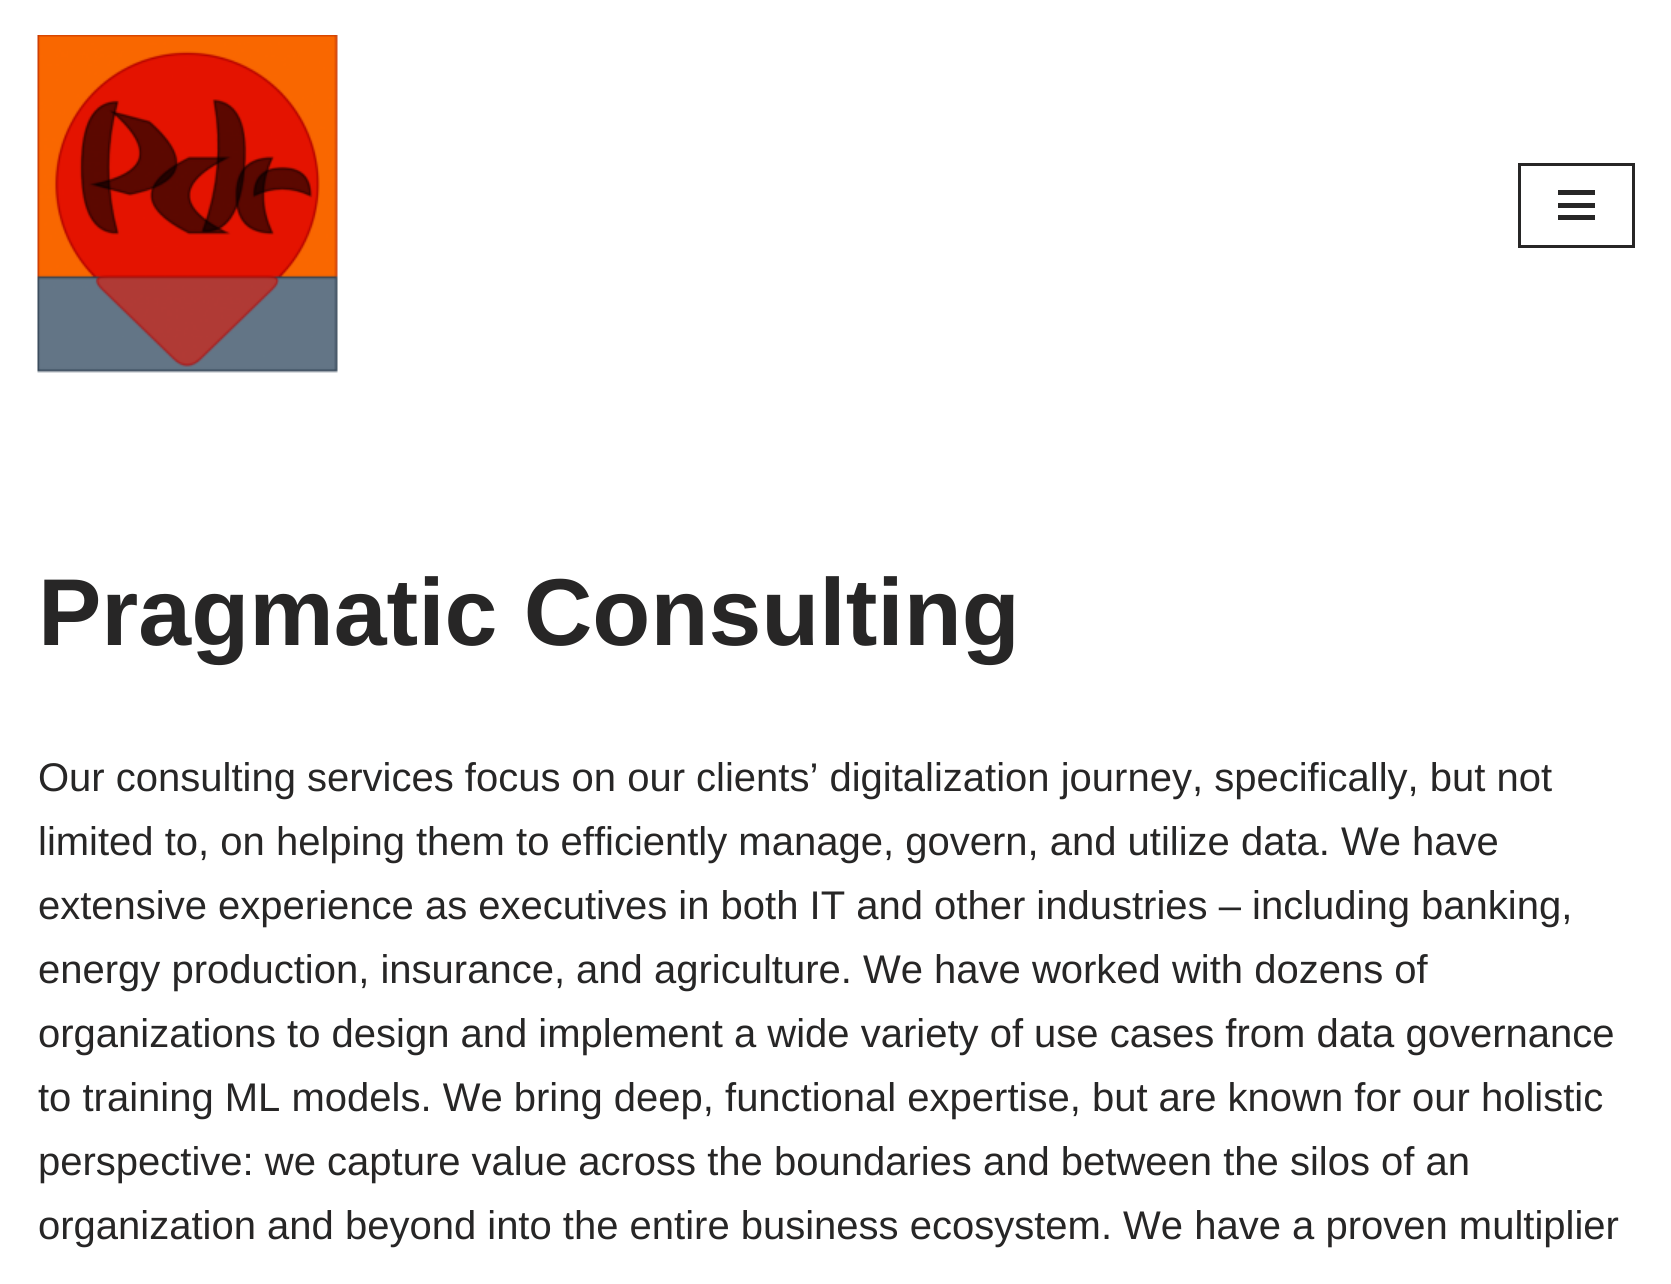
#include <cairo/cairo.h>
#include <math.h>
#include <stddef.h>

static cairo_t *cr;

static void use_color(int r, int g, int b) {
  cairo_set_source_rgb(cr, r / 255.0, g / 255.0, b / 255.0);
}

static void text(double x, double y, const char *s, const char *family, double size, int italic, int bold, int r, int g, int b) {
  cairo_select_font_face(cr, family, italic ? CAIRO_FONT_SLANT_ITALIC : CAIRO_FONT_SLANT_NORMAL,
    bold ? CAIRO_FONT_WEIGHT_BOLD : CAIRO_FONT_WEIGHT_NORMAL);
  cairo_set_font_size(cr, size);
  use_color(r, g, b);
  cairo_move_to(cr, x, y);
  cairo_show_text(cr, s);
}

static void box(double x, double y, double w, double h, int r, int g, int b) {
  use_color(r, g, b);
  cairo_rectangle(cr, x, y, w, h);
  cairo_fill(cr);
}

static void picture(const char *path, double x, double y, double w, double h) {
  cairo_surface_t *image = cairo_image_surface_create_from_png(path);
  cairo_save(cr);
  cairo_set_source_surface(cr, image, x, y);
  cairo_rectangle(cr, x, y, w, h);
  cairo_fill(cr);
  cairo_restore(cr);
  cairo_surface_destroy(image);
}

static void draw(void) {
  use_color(255, 255, 255);
  cairo_paint(cr);
  picture("img_01.png", 37, 35, 301, 338);
  cairo_rectangle(cr, 1519.5, 164.5, 114, 82);
  use_color(39, 38, 38);
  cairo_set_line_width(cr, 3);
  cairo_stroke(cr);
  box(1558, 190, 37, 5, 39, 38, 38);
  box(1558, 203, 37, 5, 39, 38, 38);
  box(1558, 215, 37, 5, 39, 38, 38);
  text(38, 645, "Pragmatic Consulting", "Liberation Sans", 95, 0, 1, 39, 38, 38);
  text(38, 791, "Our consulting services focus on our clients’ digitalization journey, specifically, but not", "Liberation Sans", 40, 0, 0, 39, 38, 38);
  text(38, 855, "limited to, on helping them to efficiently manage, govern, and utilize data. We have", "Liberation Sans", 40, 0, 0, 39, 38, 38);
  text(38, 919, "extensive experience as executives in both IT and other industries – including banking,", "Liberation Sans", 40, 0, 0, 39, 38, 38);
  text(38, 983, "energy production, insurance, and agriculture. We have worked with dozens of", "Liberation Sans", 40, 0, 0, 39, 38, 38);
  text(38, 1047, "organizations to design and implement a wide variety of use cases from data governance", "Liberation Sans", 40, 0, 0, 39, 38, 38);
  text(38, 1111, "to training ML models. We bring deep, functional expertise, but are known for our holistic", "Liberation Sans", 40, 0, 0, 39, 38, 38);
  text(38, 1175, "perspective: we capture value across the boundaries and between the silos of an", "Liberation Sans", 40, 0, 0, 39, 38, 38);
  text(38, 1239, "organization and beyond into the entire business ecosystem. We have a proven multiplier", "Liberation Sans", 40, 0, 0, 39, 38, 38);
}

int main(void) {
  cairo_surface_t *surface = cairo_image_surface_create(CAIRO_FORMAT_RGB24, 1671, 1284);
  cr = cairo_create(surface);
  cairo_font_options_t *options = cairo_font_options_create();
  cairo_font_options_set_hint_metrics(options, CAIRO_HINT_METRICS_OFF);
  cairo_font_options_set_hint_style(options, CAIRO_HINT_STYLE_NONE);
  cairo_set_font_options(cr, options);
  cairo_set_miter_limit(cr, 4);
  draw();
  cairo_surface_write_to_png(surface, "out.png");
  cairo_font_options_destroy(options);
  cairo_destroy(cr);
  cairo_surface_destroy(surface);
  return 0;
}
